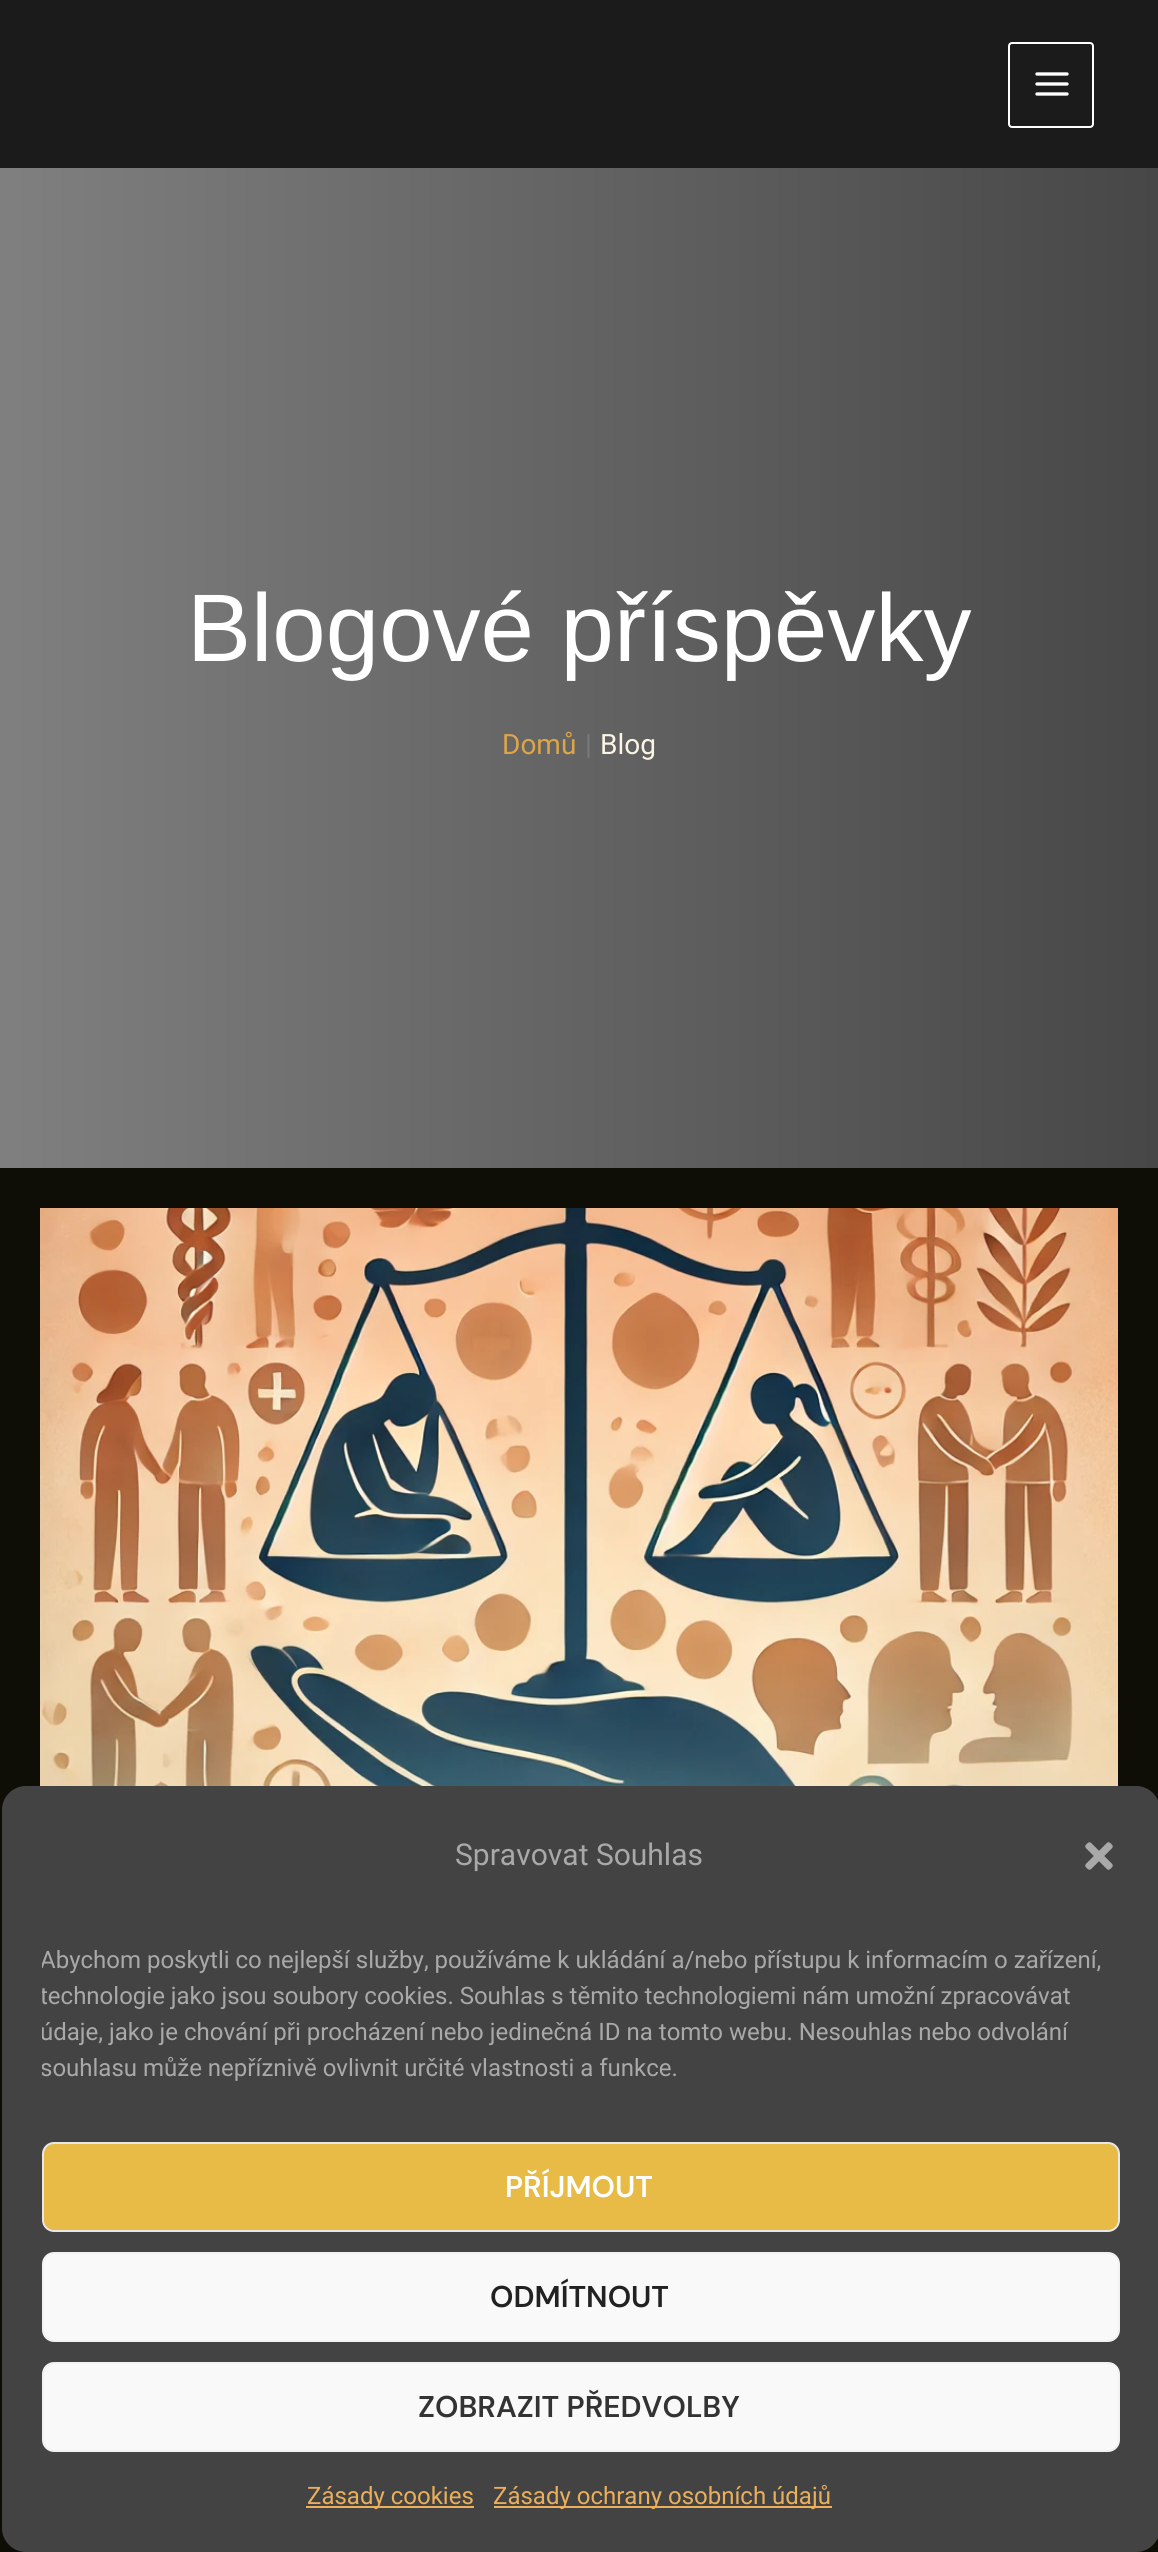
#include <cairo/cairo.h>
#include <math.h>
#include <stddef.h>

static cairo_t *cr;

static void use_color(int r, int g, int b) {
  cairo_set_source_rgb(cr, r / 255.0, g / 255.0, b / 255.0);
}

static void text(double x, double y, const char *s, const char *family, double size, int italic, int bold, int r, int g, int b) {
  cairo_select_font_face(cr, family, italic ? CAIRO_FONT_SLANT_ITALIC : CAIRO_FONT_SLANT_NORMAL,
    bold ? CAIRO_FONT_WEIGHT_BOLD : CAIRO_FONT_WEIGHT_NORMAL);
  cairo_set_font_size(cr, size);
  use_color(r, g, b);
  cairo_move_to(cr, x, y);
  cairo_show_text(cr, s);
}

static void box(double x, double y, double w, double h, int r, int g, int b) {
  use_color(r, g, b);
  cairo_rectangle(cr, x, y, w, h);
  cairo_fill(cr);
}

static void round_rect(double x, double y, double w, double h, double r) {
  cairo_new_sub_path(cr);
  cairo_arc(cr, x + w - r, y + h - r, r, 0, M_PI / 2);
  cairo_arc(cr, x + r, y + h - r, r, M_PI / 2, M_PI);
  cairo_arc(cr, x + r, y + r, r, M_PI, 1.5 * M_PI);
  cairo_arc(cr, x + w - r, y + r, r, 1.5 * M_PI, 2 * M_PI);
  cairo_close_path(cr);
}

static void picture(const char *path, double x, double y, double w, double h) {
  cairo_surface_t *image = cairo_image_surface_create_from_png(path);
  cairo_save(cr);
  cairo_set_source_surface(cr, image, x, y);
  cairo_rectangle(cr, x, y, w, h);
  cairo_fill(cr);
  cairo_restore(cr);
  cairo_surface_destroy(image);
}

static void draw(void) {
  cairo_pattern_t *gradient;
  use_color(14, 13, 6);
  cairo_paint(cr);
  box(0, 0, 1158, 168, 27, 27, 27);
  round_rect(1009, 43, 84, 84, 3);
  use_color(255, 255, 255);
  cairo_stroke(cr);
  picture("img_01.png", 1035, 72, 34, 24);
  gradient = cairo_pattern_create_linear(0, 668, 1158, 668);
  cairo_pattern_add_color_stop_rgba(gradient, 0.01, 0.498, 0.498, 0.498, 1);
  cairo_pattern_add_color_stop_rgba(gradient, 1, 0.278, 0.278, 0.278, 1);
  cairo_set_source(cr, gradient);
  cairo_pattern_destroy(gradient);
  cairo_rectangle(cr, 0, 168, 1158, 1000);
  cairo_fill(cr);
  picture("img_02.png", 40, 1208, 1078, 578);
  use_color(67, 67, 67);
  round_rect(2, 1786, 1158, 766, 24);
  cairo_fill(cr);
  picture("img_03.png", 1085, 1842, 28, 28);
  use_color(231, 187, 69);
  round_rect(43, 2143, 1076, 88, 11);
  cairo_fill_preserve(cr);
  use_color(231, 231, 231);
  cairo_stroke(cr);
  use_color(249, 249, 249);
  round_rect(43, 2253, 1076, 88, 11);
  cairo_fill_preserve(cr);
  use_color(242, 242, 242);
  cairo_stroke(cr);
  use_color(249, 249, 249);
  round_rect(43, 2363, 1076, 88, 11);
  cairo_fill_preserve(cr);
  use_color(242, 242, 242);
  cairo_stroke(cr);
  box(306, 2506, 168, 2, 235, 175, 92);
  box(494, 2506, 338, 2, 235, 175, 92);
  text(187, 661, "Blogové příspěvky", "Liberation Sans", 96, 0, 0, 255, 255, 255);
  text(502, 754, "Domů", "Roboto", 28, 0, 0, 220, 165, 74);
  text(585, 754, "|", "Roboto", 28, 0, 0, 120, 120, 120);
  text(600, 754, "Blog", "Roboto", 28, 0, 0, 250, 245, 229);
  text(455, 1865, "Spravovat Souhlas", "Roboto", 30, 0, 0, 169, 169, 169);
  cairo_save(cr);
  cairo_rectangle(cr, 42, 1942, 1078, 154);
  cairo_clip(cr);
  text(40, 1968, "Abychom poskytli co nejlepší služby, používáme k ukládání a/nebo přístupu k informacím o zařízení,", "Roboto", 24, 0, 0, 169, 169, 169);
  text(40, 2004, "technologie jako jsou soubory cookies. Souhlas s těmito technologiemi nám umožní zpracovávat", "Roboto", 24, 0, 0, 169, 169, 169);
  text(40, 2040, "údaje, jako je chování při procházení nebo jedinečná ID na tomto webu. Nesouhlas nebo odvolání", "Roboto", 24, 0, 0, 169, 169, 169);
  text(40, 2076, "souhlasu může nepříznivě ovlivnit určité vlastnosti a funkce.", "Roboto", 24, 0, 0, 169, 169, 169);
  cairo_restore(cr);
  text(505, 2197, "PŘÍJMOUT", "DM Sans SemiBold", 30, 0, 0, 255, 255, 255);
  text(490, 2307, "ODMÍTNOUT", "DM Sans SemiBold", 30, 0, 0, 34, 34, 34);
  text(418, 2417, "ZOBRAZIT PŘEDVOLBY", "DM Sans SemiBold", 30, 0, 0, 51, 51, 51);
  text(307, 2504, "Zásady cookies", "Roboto", 24, 0, 0, 235, 175, 92);
  text(493, 2504, "Zásady ochrany osobních údajů", "Roboto", 24, 0, 0, 235, 175, 92);
}

int main(void) {
  cairo_surface_t *surface = cairo_image_surface_create(CAIRO_FORMAT_RGB24, 1158, 2552);
  cr = cairo_create(surface);
  cairo_font_options_t *options = cairo_font_options_create();
  cairo_font_options_set_hint_metrics(options, CAIRO_HINT_METRICS_OFF);
  cairo_font_options_set_hint_style(options, CAIRO_HINT_STYLE_NONE);
  cairo_set_font_options(cr, options);
  cairo_set_miter_limit(cr, 4);
  draw();
  cairo_surface_write_to_png(surface, "out.png");
  cairo_font_options_destroy(options);
  cairo_destroy(cr);
  cairo_surface_destroy(surface);
  return 0;
}
